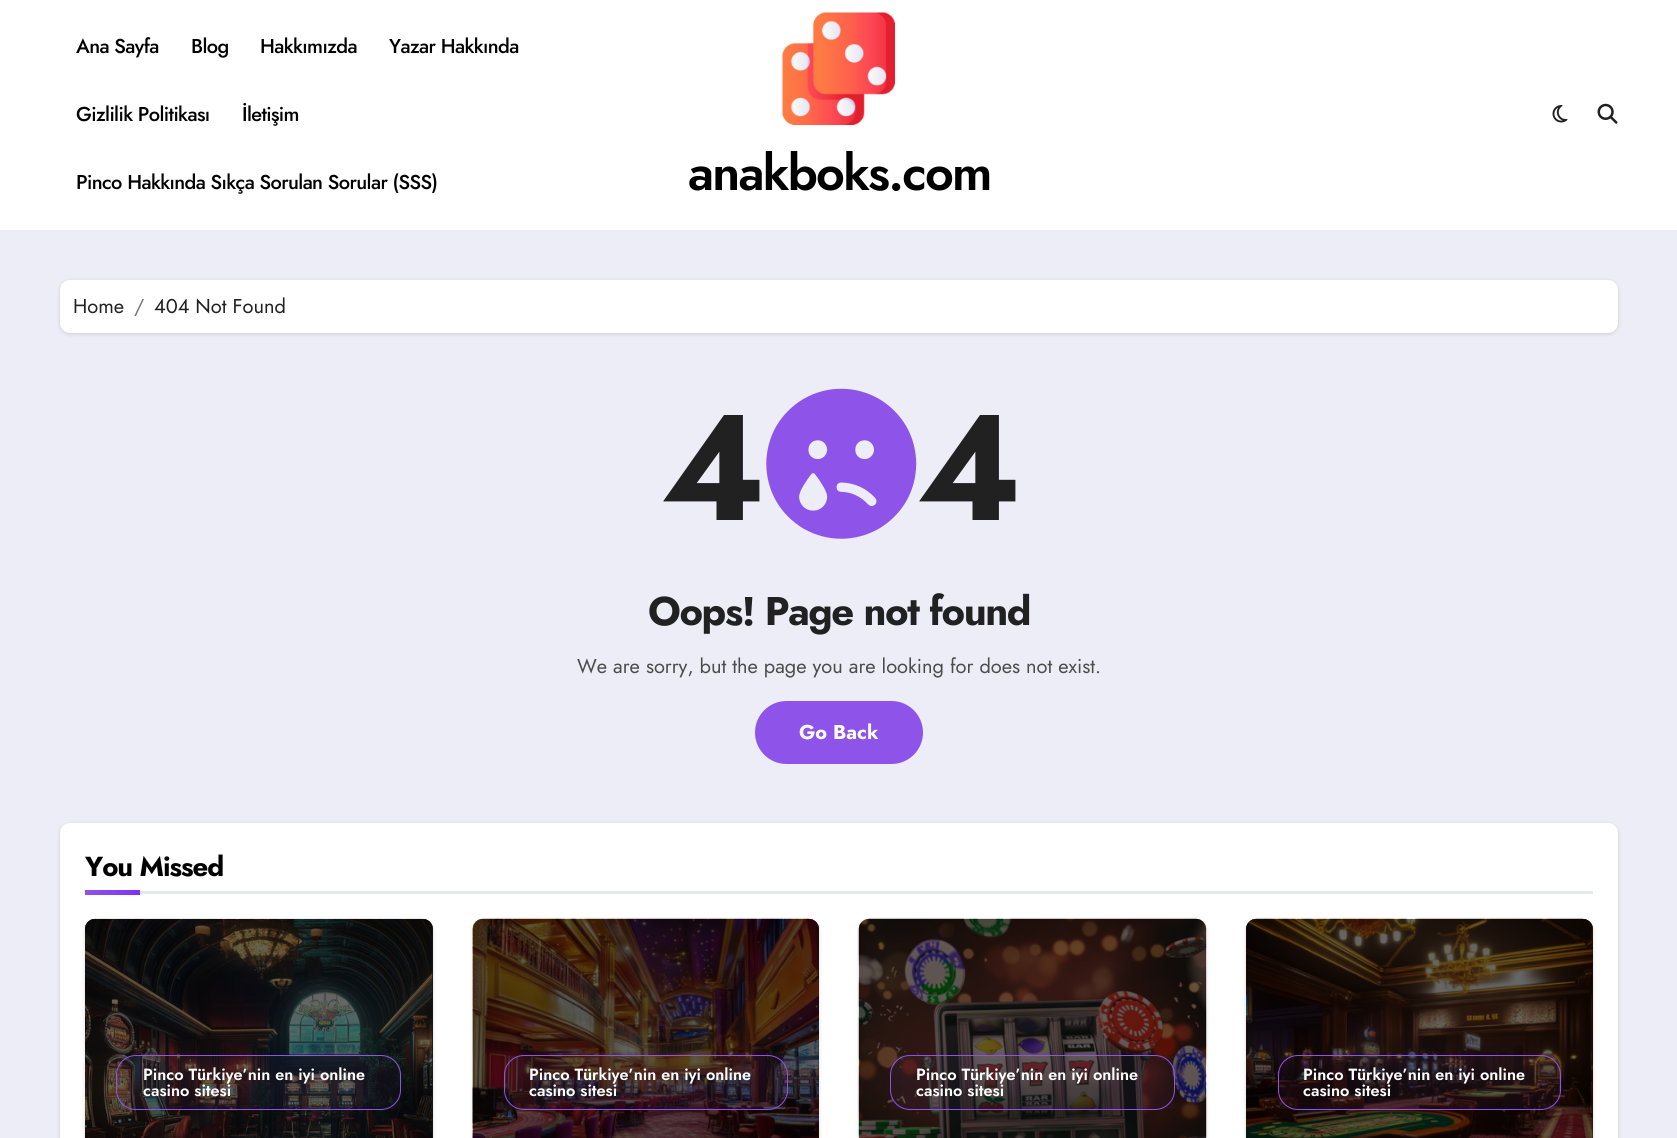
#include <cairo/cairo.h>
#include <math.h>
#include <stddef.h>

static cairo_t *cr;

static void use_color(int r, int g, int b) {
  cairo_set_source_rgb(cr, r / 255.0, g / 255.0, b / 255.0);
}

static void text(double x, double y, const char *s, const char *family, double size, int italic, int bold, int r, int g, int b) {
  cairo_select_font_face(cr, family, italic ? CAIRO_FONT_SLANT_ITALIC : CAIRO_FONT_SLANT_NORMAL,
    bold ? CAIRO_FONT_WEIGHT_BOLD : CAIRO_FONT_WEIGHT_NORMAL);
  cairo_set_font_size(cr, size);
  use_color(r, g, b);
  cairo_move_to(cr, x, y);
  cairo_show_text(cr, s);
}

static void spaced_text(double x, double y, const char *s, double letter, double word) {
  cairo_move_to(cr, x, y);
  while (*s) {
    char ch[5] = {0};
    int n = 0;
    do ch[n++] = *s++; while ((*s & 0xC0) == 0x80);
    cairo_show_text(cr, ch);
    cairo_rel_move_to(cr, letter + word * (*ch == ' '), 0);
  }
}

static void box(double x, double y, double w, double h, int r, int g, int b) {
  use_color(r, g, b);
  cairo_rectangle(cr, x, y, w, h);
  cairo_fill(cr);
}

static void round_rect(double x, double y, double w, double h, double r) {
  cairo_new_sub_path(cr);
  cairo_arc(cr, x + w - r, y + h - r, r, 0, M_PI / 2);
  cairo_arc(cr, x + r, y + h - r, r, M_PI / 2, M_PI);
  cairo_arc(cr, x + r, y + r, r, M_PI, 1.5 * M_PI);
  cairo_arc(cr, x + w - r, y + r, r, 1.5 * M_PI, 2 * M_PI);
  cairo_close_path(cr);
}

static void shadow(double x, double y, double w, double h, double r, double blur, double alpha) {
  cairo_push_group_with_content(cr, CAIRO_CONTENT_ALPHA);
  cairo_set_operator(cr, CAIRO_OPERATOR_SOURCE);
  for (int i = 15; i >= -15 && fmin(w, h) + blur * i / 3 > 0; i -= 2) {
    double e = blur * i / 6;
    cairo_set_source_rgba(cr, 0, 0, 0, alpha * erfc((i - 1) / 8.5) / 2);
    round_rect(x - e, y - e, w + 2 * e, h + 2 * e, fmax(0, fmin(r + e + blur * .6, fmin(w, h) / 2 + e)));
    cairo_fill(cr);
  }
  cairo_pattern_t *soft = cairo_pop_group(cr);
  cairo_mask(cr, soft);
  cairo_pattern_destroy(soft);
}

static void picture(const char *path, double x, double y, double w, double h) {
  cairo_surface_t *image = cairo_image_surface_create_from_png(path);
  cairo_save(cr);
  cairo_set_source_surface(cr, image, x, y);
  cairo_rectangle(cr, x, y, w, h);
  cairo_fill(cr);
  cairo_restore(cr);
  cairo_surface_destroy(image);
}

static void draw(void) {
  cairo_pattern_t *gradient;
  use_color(237, 237, 247);
  cairo_paint(cr);
  box(0, 0, 1677, 230, 255, 255, 255);
  picture("img_01.png", 1552, 105, 16, 18);
  picture("img_02.png", 1597, 103, 21, 21);
  picture("img_03.png", 782, 12, 113, 113);
  use_color(0, 0, 0);
  shadow(60, 281, 1558, 53, 10, 2, 0.15);
  use_color(255, 255, 255);
  round_rect(60, 280, 1558, 53, 10);
  cairo_fill(cr);
  picture("img_04.png", 766, 388, 151, 151);
  use_color(142, 84, 233);
  round_rect(755, 701, 168, 63, 31.5);
  cairo_fill(cr);
  use_color(0, 0, 0);
  shadow(60, 824, 1558, 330, 10, 2, 0.15);
  use_color(255, 255, 255);
  round_rect(60, 823, 1558, 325, 10);
  cairo_fill(cr);
  box(140, 891, 1453, 3, 226, 232, 240);
  gradient = cairo_pattern_create_linear(85, 893, 140, 893);
  cairo_pattern_add_color_stop_rgba(gradient, 0, 0.557, 0.329, 0.914, 1);
  cairo_pattern_add_color_stop_rgba(gradient, 1, 0.486, 0.192, 0.969, 1);
  cairo_set_source(cr, gradient);
  cairo_pattern_destroy(gradient);
  cairo_rectangle(cr, 85, 890, 55, 5);
  cairo_fill(cr);
  use_color(0, 0, 0);
  shadow(85, 920, 348, 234, 10, 2, 0.15);
  use_color(51, 51, 51);
  round_rect(85, 919, 348, 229, 10);
  cairo_fill(cr);
  picture("img_05.png", 85, 918, 348, 220);
  cairo_set_source_rgba(cr, 0, 0, 0, 0.6);
  round_rect(85, 919, 348, 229, 10);
  cairo_fill(cr);
  round_rect(116.5, 1055.5, 284, 54, 19.5);
  use_color(142, 84, 233);
  cairo_set_line_width(cr, 1);
  cairo_stroke(cr);
  cairo_set_source_rgba(cr, 0.557, 0.329, 0.914, 0.05);
  cairo_rectangle(cr, 118, 1056, 282, 53);
  cairo_fill(cr);
  use_color(0, 0, 0);
  shadow(473, 920, 346, 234, 10, 2, 0.15);
  use_color(51, 51, 51);
  round_rect(473, 919, 346, 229, 10);
  cairo_fill(cr);
  picture("img_06.png", 472, 918, 347, 220);
  cairo_set_source_rgba(cr, 0, 0, 0, 0.6);
  round_rect(473, 919, 346, 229, 10);
  cairo_fill(cr);
  round_rect(504.5, 1055.5, 283, 54, 19.5);
  use_color(142, 84, 233);
  cairo_stroke(cr);
  cairo_set_source_rgba(cr, 0.557, 0.329, 0.914, 0.05);
  cairo_rectangle(cr, 505, 1056, 281, 53);
  cairo_fill(cr);
  use_color(0, 0, 0);
  shadow(859, 920, 347, 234, 10, 2, 0.15);
  picture("img_07.png", 858, 918, 349, 220);
  cairo_set_source_rgba(cr, 0, 0, 0, 0.6);
  round_rect(859, 919, 347, 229, 10);
  cairo_fill(cr);
  round_rect(890.5, 1055.5, 284, 54, 19.5);
  use_color(142, 84, 233);
  cairo_stroke(cr);
  cairo_set_source_rgba(cr, 0.557, 0.329, 0.914, 0.05);
  cairo_rectangle(cr, 891, 1056, 283, 53);
  cairo_fill(cr);
  use_color(0, 0, 0);
  shadow(1246, 920, 347, 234, 10, 2, 0.15);
  use_color(51, 51, 51);
  round_rect(1246, 919, 347, 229, 10);
  cairo_fill(cr);
  picture("img_08.png", 1246, 918, 347, 220);
  cairo_set_source_rgba(cr, 0, 0, 0, 0.6);
  round_rect(1246, 919, 347, 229, 10);
  cairo_fill(cr);
  round_rect(1278.5, 1055.5, 282, 54, 19.5);
  use_color(142, 84, 233);
  cairo_stroke(cr);
  cairo_set_source_rgba(cr, 0.557, 0.329, 0.914, 0.05);
  cairo_rectangle(cr, 1279, 1056, 281, 53);
  cairo_fill(cr);
  cairo_select_font_face(cr, "Jost Medium", CAIRO_FONT_SLANT_NORMAL, CAIRO_FONT_WEIGHT_NORMAL);
  cairo_set_font_size(cr, 20);
  use_color(0, 0, 0);
  spaced_text(76, 53, "Ana Sayfa", -0.6, 0);
  spaced_text(191, 53, "Blog", -0.6, 0);
  spaced_text(260, 53, "Hakkımızda", -0.6, 0);
  spaced_text(389, 53, "Yazar Hakkında", -0.6, 0);
  spaced_text(76, 121, "Gizlilik Politikası", -0.6, 0);
  spaced_text(242, 121, "İletişim", -0.6, 0);
  spaced_text(76, 189, "Pinco Hakkında Sıkça Sorulan Sorular (SSS)", -0.6, 0);
  cairo_select_font_face(cr, "Jost SemiBold", CAIRO_FONT_SLANT_NORMAL, CAIRO_FONT_WEIGHT_NORMAL);
  cairo_set_font_size(cr, 50);
  spaced_text(688, 190, "anakboks.com", -1.75, 0);
  text(73, 313, "Home", "Jost", 20, 0, 0, 33, 33, 33);
  text(134, 313, "/", "Jost", 20, 0, 0, 108, 117, 125);
  text(154, 313, "404 Not Found", "Jost", 20, 0, 0, 33, 33, 33);
  cairo_select_font_face(cr, "Jost", CAIRO_FONT_SLANT_NORMAL, CAIRO_FONT_WEIGHT_BOLD);
  cairo_set_font_size(cr, 150);
  spaced_text(661, 520, "4", -5, 0);
  spaced_text(917, 520, "4", -5, 0);
  cairo_set_font_size(cr, 40);
  spaced_text(648, 625, "Oops! Page not found", -1.4, 0);
  text(577, 673, "We are sorry, but the page you are looking for does not exist.", "Jost", 20, 0, 0, 76, 76, 76);
  text(799, 739, "Go Back", "Jost", 20, 0, 1, 255, 255, 255);
  cairo_set_font_size(cr, 27.5);
  use_color(0, 0, 0);
  spaced_text(85, 876, "You Missed", -1, 0);
  text(143, 1080, "Pinco Türkiye’nin en iyi online", "Jost SemiBold", 16.25, 0, 0, 255, 255, 255);
  text(143, 1096, "casino sitesi", "Jost SemiBold", 16.25, 0, 0, 255, 255, 255);
  text(529, 1080, "Pinco Türkiye’nin en iyi online", "Jost SemiBold", 16.25, 0, 0, 255, 255, 255);
  text(529, 1096, "casino sitesi", "Jost SemiBold", 16.25, 0, 0, 255, 255, 255);
  text(916, 1080, "Pinco Türkiye’nin en iyi online", "Jost SemiBold", 16.25, 0, 0, 255, 255, 255);
  text(916, 1096, "casino sitesi", "Jost SemiBold", 16.25, 0, 0, 255, 255, 255);
  text(1303, 1080, "Pinco Türkiye’nin en iyi online", "Jost SemiBold", 16.25, 0, 0, 255, 255, 255);
  text(1303, 1096, "casino sitesi", "Jost SemiBold", 16.25, 0, 0, 255, 255, 255);
}

int main(void) {
  cairo_surface_t *surface = cairo_image_surface_create(CAIRO_FORMAT_RGB24, 1677, 1138);
  cr = cairo_create(surface);
  cairo_font_options_t *options = cairo_font_options_create();
  cairo_font_options_set_hint_metrics(options, CAIRO_HINT_METRICS_OFF);
  cairo_font_options_set_hint_style(options, CAIRO_HINT_STYLE_NONE);
  cairo_set_font_options(cr, options);
  cairo_set_miter_limit(cr, 4);
  draw();
  cairo_surface_write_to_png(surface, "out.png");
  cairo_font_options_destroy(options);
  cairo_destroy(cr);
  cairo_surface_destroy(surface);
  return 0;
}
